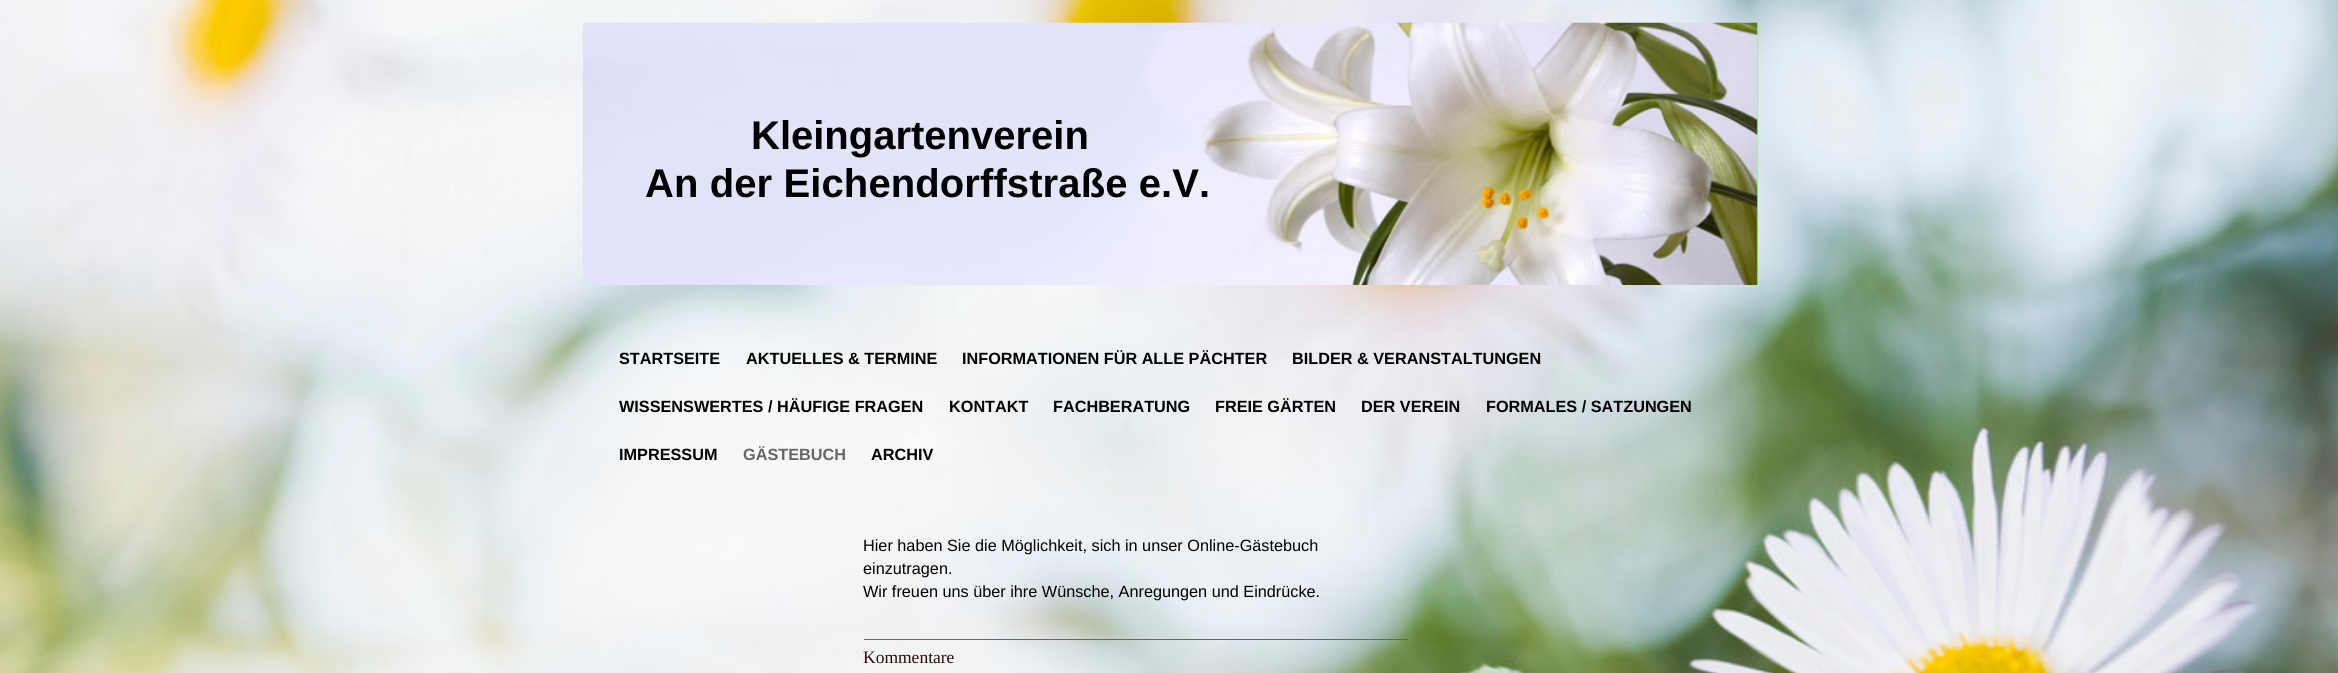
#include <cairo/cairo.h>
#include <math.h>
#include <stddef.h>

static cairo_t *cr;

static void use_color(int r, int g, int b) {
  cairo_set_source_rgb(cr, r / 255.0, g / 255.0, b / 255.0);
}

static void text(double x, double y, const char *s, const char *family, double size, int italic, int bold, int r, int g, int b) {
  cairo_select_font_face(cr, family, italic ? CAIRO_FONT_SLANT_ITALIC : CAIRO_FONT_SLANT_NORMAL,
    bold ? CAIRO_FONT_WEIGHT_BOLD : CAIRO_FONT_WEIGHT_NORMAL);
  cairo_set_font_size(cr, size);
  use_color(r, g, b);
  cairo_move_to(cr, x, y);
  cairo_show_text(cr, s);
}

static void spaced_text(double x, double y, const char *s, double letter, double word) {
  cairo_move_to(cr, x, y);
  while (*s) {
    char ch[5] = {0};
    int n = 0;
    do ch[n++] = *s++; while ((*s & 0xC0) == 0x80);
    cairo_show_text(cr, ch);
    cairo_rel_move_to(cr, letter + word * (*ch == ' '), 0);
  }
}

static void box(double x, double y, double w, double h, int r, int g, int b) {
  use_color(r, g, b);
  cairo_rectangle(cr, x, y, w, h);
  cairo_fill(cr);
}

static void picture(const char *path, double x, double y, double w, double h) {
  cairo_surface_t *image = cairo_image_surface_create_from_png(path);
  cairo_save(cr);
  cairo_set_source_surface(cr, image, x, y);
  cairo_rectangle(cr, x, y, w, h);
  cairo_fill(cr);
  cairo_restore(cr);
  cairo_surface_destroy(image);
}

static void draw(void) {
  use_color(255, 255, 255);
  cairo_paint(cr);
  picture("img_01.png", 0, 0, 2338, 673);
  box(1757, 23, 1, 262, 130, 249, 145);
  picture("img_02.png", 582, 22, 1176, 263);
  box(864, 639, 544, 1, 102, 102, 102);
  text(751, 149, "Kleingartenverein", "Liberation Sans", 40, 0, 1, 0, 0, 0);
  spaced_text(645, 197, "An der Eichendorffstraße e.V.", 0.1, 0);
  text(619, 364, "STARTSEITE", "Liberation Sans", 16.25, 0, 1, 0, 0, 0);
  text(746, 364, "AKTUELLES & TERMINE", "Liberation Sans", 16.25, 0, 1, 0, 0, 0);
  text(962, 364, "INFORMATIONEN FÜR ALLE PÄCHTER", "Liberation Sans", 16.25, 0, 1, 0, 0, 0);
  text(1292, 364, "BILDER & VERANSTALTUNGEN", "Liberation Sans", 16.25, 0, 1, 0, 0, 0);
  text(619, 412, "WISSENSWERTES / HÄUFIGE FRAGEN", "Liberation Sans", 16.25, 0, 1, 0, 0, 0);
  text(949, 412, "KONTAKT", "Liberation Sans", 16.25, 0, 1, 0, 0, 0);
  text(1053, 412, "FACHBERATUNG", "Liberation Sans", 16.25, 0, 1, 0, 0, 0);
  text(1215, 412, "FREIE GÄRTEN", "Liberation Sans", 16.25, 0, 1, 0, 0, 0);
  text(1361, 412, "DER VEREIN", "Liberation Sans", 16.25, 0, 1, 0, 0, 0);
  text(1486, 412, "FORMALES / SATZUNGEN", "Liberation Sans", 16.25, 0, 1, 0, 0, 0);
  text(619, 460, "IMPRESSUM", "Liberation Sans", 16.25, 0, 1, 0, 0, 0);
  text(743, 460, "GÄSTEBUCH", "Liberation Sans", 16.25, 0, 1, 102, 102, 102);
  text(871, 460, "ARCHIV", "Liberation Sans", 16.25, 0, 1, 0, 0, 0);
  text(863, 551, "Hier haben Sie die Möglichkeit, sich in unser Online-Gästebuch", "Liberation Sans", 16.25, 0, 0, 0, 0, 0);
  text(863, 574, "einzutragen.", "Liberation Sans", 16.25, 0, 0, 0, 0, 0);
  text(863, 597, "Wir freuen uns über ihre Wünsche, Anregungen und Eindrücke.", "Liberation Sans", 16.25, 0, 0, 0, 0, 0);
  text(863, 663, "Kommentare", "Liberation Serif", 17.5, 0, 0, 44, 8, 8);
}

int main(void) {
  cairo_surface_t *surface = cairo_image_surface_create(CAIRO_FORMAT_RGB24, 2338, 673);
  cr = cairo_create(surface);
  cairo_font_options_t *options = cairo_font_options_create();
  cairo_font_options_set_hint_metrics(options, CAIRO_HINT_METRICS_OFF);
  cairo_font_options_set_hint_style(options, CAIRO_HINT_STYLE_NONE);
  cairo_set_font_options(cr, options);
  cairo_set_miter_limit(cr, 4);
  draw();
  cairo_surface_write_to_png(surface, "out.png");
  cairo_font_options_destroy(options);
  cairo_destroy(cr);
  cairo_surface_destroy(surface);
  return 0;
}
